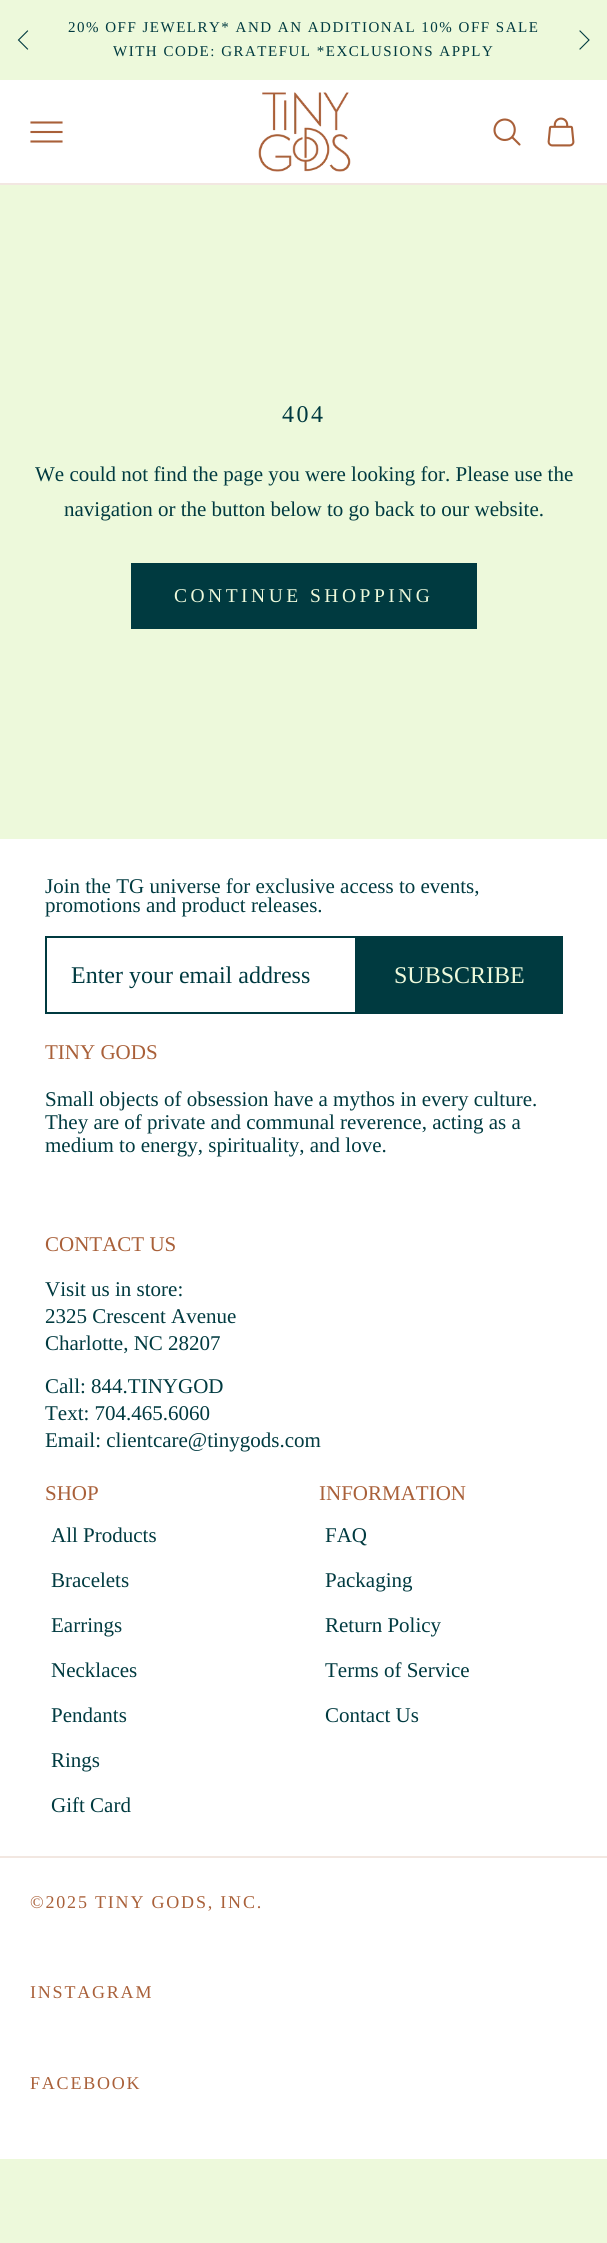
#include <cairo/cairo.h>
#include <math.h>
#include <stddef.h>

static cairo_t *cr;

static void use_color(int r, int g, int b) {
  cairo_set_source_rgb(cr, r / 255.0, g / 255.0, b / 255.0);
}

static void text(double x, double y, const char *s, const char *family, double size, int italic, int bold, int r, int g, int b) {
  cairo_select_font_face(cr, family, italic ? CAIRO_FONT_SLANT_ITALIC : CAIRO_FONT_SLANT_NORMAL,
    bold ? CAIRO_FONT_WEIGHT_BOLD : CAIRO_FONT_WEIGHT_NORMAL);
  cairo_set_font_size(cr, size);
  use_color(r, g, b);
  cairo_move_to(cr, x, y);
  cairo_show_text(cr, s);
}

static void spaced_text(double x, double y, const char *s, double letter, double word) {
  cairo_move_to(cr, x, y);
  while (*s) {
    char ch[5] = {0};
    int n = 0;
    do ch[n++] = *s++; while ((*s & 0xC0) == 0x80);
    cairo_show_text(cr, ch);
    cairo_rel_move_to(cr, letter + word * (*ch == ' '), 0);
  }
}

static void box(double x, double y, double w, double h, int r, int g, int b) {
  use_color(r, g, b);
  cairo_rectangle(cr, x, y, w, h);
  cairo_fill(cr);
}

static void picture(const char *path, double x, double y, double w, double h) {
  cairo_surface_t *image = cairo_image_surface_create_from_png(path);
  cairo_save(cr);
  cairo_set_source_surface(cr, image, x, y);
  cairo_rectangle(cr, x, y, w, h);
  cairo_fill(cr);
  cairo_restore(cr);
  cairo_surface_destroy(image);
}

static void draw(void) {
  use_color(237, 249, 219);
  cairo_paint(cr);
  cairo_new_path(cr);
  cairo_move_to(cr, 27.5, 31);
  cairo_line_to(cr, 18.5, 40);
  cairo_line_to(cr, 27.5, 49);
  use_color(0, 58, 64);
  cairo_set_line_width(cr, 1.1);
  cairo_set_line_cap(cr, CAIRO_LINE_CAP_SQUARE);
  cairo_stroke(cr);
  cairo_new_path(cr);
  cairo_move_to(cr, 580, 49);
  cairo_line_to(cr, 589, 40);
  cairo_line_to(cr, 580, 31);
  cairo_stroke(cr);
  box(0, 80, 607, 103, 255, 255, 255);
  box(0, 183, 607, 2, 242, 231, 225);
  cairo_new_path(cr);
  cairo_move_to(cr, 31.5, 141.5);
  cairo_line_to(cr, 61.5, 141.5);
  cairo_move_to(cr, 31.5, 132);
  cairo_line_to(cr, 61.5, 132);
  cairo_move_to(cr, 31.5, 122.5);
  cairo_line_to(cr, 61.5, 122.5);
  use_color(169, 96, 57);
  cairo_set_line_width(cr, 2.1);
  cairo_stroke(cr);
  picture("img_01.png", 258, 92, 93, 80);
  cairo_new_path(cr);
  cairo_move_to(cr, 505, 119.5);
  cairo_curve_to(cr, 494.5, 119.5, 490.5, 133.5, 499.5, 138.5);
  cairo_curve_to(cr, 501, 139.5, 503, 140, 505, 140);
  cairo_curve_to(cr, 518, 139.5, 518, 120, 505, 119.5);
  cairo_close_path(cr);
  cairo_set_line_cap(cr, CAIRO_LINE_CAP_BUTT);
  cairo_stroke(cr);
  cairo_new_path(cr);
  cairo_move_to(cr, 512.5, 137.5);
  cairo_line_to(cr, 519.5, 144.5);
  cairo_set_line_cap(cr, CAIRO_LINE_CAP_ROUND);
  cairo_stroke(cr);
  picture("img_02.png", 547, 117, 28, 30);
  use_color(0, 58, 64);
  cairo_rectangle(cr, 132, 564, 344, 64);
  cairo_fill_preserve(cr);
  cairo_set_line_width(cr, 2);
  cairo_set_line_cap(cr, CAIRO_LINE_CAP_BUTT);
  cairo_stroke(cr);
  box(0, 839, 607, 1017, 255, 255, 255);
  cairo_rectangle(cr, 46, 937, 310, 76);
  use_color(0, 58, 64);
  cairo_stroke(cr);
  box(357, 936, 206, 78, 0, 58, 64);
  box(0, 1858, 607, 301, 255, 255, 255);
  box(0, 1856, 607, 2, 242, 231, 225);
  cairo_select_font_face(cr, "Liberation Serif", CAIRO_FONT_SLANT_NORMAL, CAIRO_FONT_WEIGHT_NORMAL);
  cairo_set_font_size(cr, 15);
  use_color(0, 58, 64);
  spaced_text(68, 32, "20% OFF JEWELRY* AND AN ADDITIONAL 10% OFF SALE", 1.5, 0);
  spaced_text(113, 56, "WITH CODE: GRATEFUL *EXCLUSIONS APPLY", 1.5, 0);
  cairo_set_font_size(cr, 24);
  spaced_text(282, 422, "404", 2.5, 0);
  text(35, 481, "We could not find the page you were looking for. Please use the", "Liberation Serif", 21, 0, 0, 0, 58, 64);
  text(64, 516, "navigation or the button below to go back to our website.", "Liberation Serif", 21, 0, 0, 0, 58, 64);
  cairo_set_font_size(cr, 19.5);
  use_color(237, 249, 219);
  spaced_text(174, 602, "CONTINUE SHOPPING", 3.5, 0);
  text(45, 893, "Join the TG universe for exclusive access to events,", "Liberation Serif", 21, 0, 0, 0, 58, 64);
  text(45, 912, "promotions and product releases.", "Liberation Serif", 21, 0, 0, 0, 58, 64);
  text(71, 983, "Enter your email address", "Liberation Serif", 24, 0, 0, 0, 58, 64);
  text(394, 983, "SUBSCRIBE", "Liberation Serif", 24, 0, 0, 237, 249, 219);
  text(45, 1059, "TINY GODS", "Liberation Serif", 21, 0, 0, 169, 96, 57);
  text(45, 1106, "Small objects of obsession have a mythos in every culture.", "Liberation Serif", 21, 0, 0, 0, 58, 64);
  text(45, 1129, "They are of private and communal reverence, acting as a", "Liberation Serif", 21, 0, 0, 0, 58, 64);
  text(45, 1152, "medium to energy, spirituality, and love.", "Liberation Serif", 21, 0, 0, 0, 58, 64);
  text(45, 1251, "CONTACT US", "Liberation Serif", 21, 0, 0, 169, 96, 57);
  text(45, 1296, "Visit us in store:", "Liberation Serif", 21, 0, 0, 0, 58, 64);
  text(45, 1323, "2325 Crescent Avenue", "Liberation Serif", 21, 0, 0, 0, 58, 64);
  text(45, 1350, "Charlotte, NC 28207", "Liberation Serif", 21, 0, 0, 0, 58, 64);
  text(45, 1393, "Call: 844.TINYGOD", "Liberation Serif", 21, 0, 0, 0, 58, 64);
  text(45, 1420, "Text: 704.465.6060", "Liberation Serif", 21, 0, 0, 0, 58, 64);
  text(45, 1447, "Email: clientcare@tinygods.com", "Liberation Serif", 21, 0, 0, 0, 58, 64);
  text(45, 1500, "SHOP", "Liberation Serif", 21, 0, 0, 169, 96, 57);
  text(51, 1542, "All Products", "Liberation Serif", 21, 0, 0, 0, 58, 64);
  text(51, 1587, "Bracelets", "Liberation Serif", 21, 0, 0, 0, 58, 64);
  text(51, 1632, "Earrings", "Liberation Serif", 21, 0, 0, 0, 58, 64);
  text(51, 1677, "Necklaces", "Liberation Serif", 21, 0, 0, 0, 58, 64);
  text(51, 1722, "Pendants", "Liberation Serif", 21, 0, 0, 0, 58, 64);
  text(51, 1767, "Rings", "Liberation Serif", 21, 0, 0, 0, 58, 64);
  text(51, 1812, "Gift Card", "Liberation Serif", 21, 0, 0, 0, 58, 64);
  text(319, 1500, "INFORMATION", "Liberation Serif", 21, 0, 0, 169, 96, 57);
  text(325, 1542, "FAQ", "Liberation Serif", 21, 0, 0, 0, 58, 64);
  text(325, 1587, "Packaging", "Liberation Serif", 21, 0, 0, 0, 58, 64);
  text(325, 1632, "Return Policy", "Liberation Serif", 21, 0, 0, 0, 58, 64);
  text(325, 1677, "Terms of Service", "Liberation Serif", 21, 0, 0, 0, 58, 64);
  text(325, 1722, "Contact Us", "Liberation Serif", 21, 0, 0, 0, 58, 64);
  cairo_set_font_size(cr, 18);
  use_color(169, 96, 57);
  spaced_text(30, 1908, "©2025 TINY GODS, INC.", 1.8, 0);
  spaced_text(30, 1998, "INSTAGRAM", 1.8, 0);
  spaced_text(30, 2089, "FACEBOOK", 1.8, 0);
}

int main(void) {
  cairo_surface_t *surface = cairo_image_surface_create(CAIRO_FORMAT_RGB24, 607, 2243);
  cr = cairo_create(surface);
  cairo_font_options_t *options = cairo_font_options_create();
  cairo_font_options_set_hint_metrics(options, CAIRO_HINT_METRICS_OFF);
  cairo_font_options_set_hint_style(options, CAIRO_HINT_STYLE_NONE);
  cairo_set_font_options(cr, options);
  cairo_set_miter_limit(cr, 4);
  draw();
  cairo_surface_write_to_png(surface, "out.png");
  cairo_font_options_destroy(options);
  cairo_destroy(cr);
  cairo_surface_destroy(surface);
  return 0;
}
